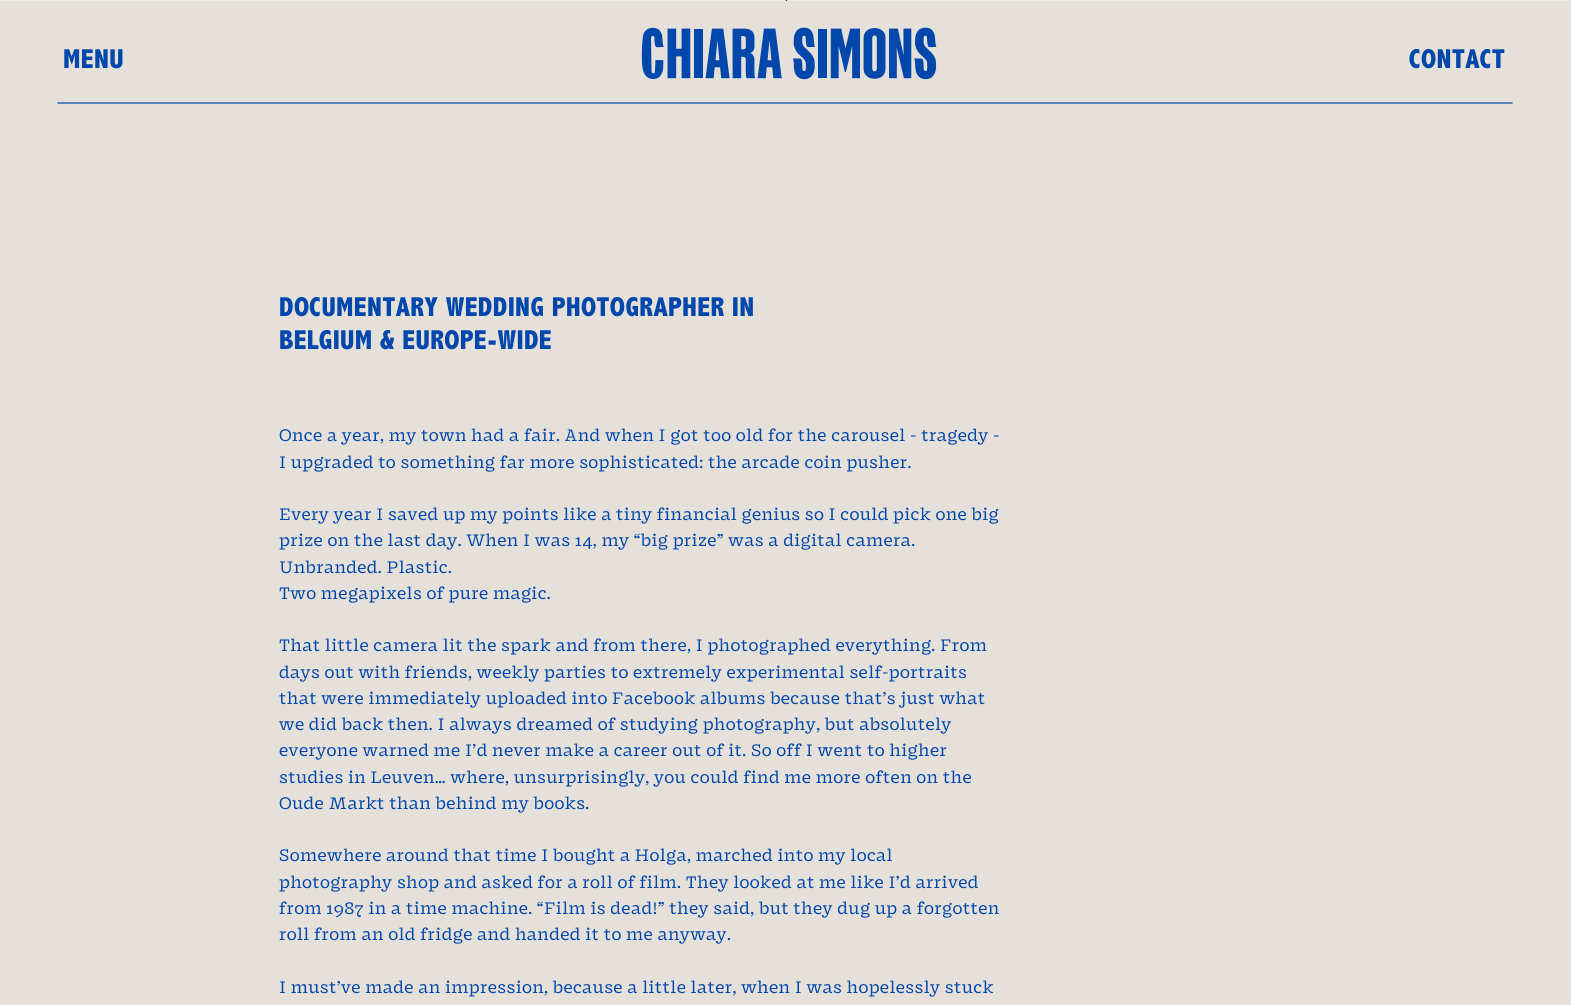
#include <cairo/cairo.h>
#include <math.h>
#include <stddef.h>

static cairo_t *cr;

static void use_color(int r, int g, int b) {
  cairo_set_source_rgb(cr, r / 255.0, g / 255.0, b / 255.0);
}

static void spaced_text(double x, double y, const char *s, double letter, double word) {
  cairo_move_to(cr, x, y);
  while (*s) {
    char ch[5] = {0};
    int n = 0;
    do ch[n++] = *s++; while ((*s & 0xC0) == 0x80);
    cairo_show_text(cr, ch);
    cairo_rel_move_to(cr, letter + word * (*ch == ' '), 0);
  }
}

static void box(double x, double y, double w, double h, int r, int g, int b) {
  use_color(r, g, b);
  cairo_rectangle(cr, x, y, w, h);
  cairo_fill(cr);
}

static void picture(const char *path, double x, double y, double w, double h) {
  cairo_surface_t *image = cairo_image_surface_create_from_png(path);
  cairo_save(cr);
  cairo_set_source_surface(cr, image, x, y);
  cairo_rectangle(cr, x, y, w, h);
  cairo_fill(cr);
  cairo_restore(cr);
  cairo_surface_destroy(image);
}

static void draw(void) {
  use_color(239, 238, 227);
  cairo_paint(cr);
  picture("img_01.png", 785, 0, 3, 1);
  picture("img_02.png", 785, 0, 3, 1);
  box(0, 1, 1571, 1004, 230, 224, 219);
  picture("img_03.png", 641, 27, 296, 53);
  cairo_new_path(cr);
  cairo_move_to(cr, 57.5, 103);
  cairo_line_to(cr, 1512.5, 103);
  use_color(0, 71, 171);
  cairo_set_line_width(cr, 1.2);
  cairo_stroke(cr);
  cairo_select_font_face(cr, "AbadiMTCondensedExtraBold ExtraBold", CAIRO_FONT_SLANT_NORMAL, CAIRO_FONT_WEIGHT_NORMAL);
  cairo_set_font_size(cr, 27.5);
  spaced_text(63, 68, "MENU", 0.3, 0);
  spaced_text(1409, 68, "CONTACT", 0.3, 0);
  spaced_text(279, 316, "DOCUMENTARY WEDDING PHOTOGRAPHER IN", 0.3, 0);
  spaced_text(279, 349, "BELGIUM & EUROPE-WIDE", 0.3, 0);
  cairo_select_font_face(cr, "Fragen", CAIRO_FONT_SLANT_NORMAL, CAIRO_FONT_WEIGHT_NORMAL);
  cairo_set_font_size(cr, 17.5);
  spaced_text(279, 441, "Once a year, my town had a fair. And when I got too old for the carousel - tragedy -", 0.35, 0);
  spaced_text(279, 468, "I upgraded to something far more sophisticated: the arcade coin pusher.", 0.35, 0);
  spaced_text(279, 520, "Every year I saved up my points like a tiny financial genius so I could pick one big", 0.35, 0);
  spaced_text(279, 546, "prize on the last day. When I was 14, my “big prize” was a digital camera.", 0.35, 0);
  spaced_text(279, 573, "Unbranded. Plastic.", 0.35, 0);
  spaced_text(279, 599, "Two megapixels of pure magic.", 0.35, 0);
  spaced_text(279, 651, "That little camera lit the spark and from there, I photographed everything. From", 0.35, 0);
  spaced_text(279, 678, "days out with friends, weekly parties to extremely experimental self-portraits", 0.35, 0);
  spaced_text(279, 704, "that were immediately uploaded into Facebook albums because that’s just what", 0.35, 0);
  spaced_text(279, 730, "we did back then. I always dreamed of studying photography, but absolutely", 0.35, 0);
  spaced_text(279, 756, "everyone warned me I’d never make a career out of it. So off I went to higher", 0.35, 0);
  spaced_text(279, 783, "studies in Leuven… where, unsurprisingly, you could find me more often on the", 0.35, 0);
  spaced_text(279, 809, "Oude Markt than behind my books.", 0.35, 0);
  spaced_text(279, 861, "Somewhere around that time I bought a Holga, marched into my local", 0.35, 0);
  spaced_text(279, 888, "photography shop and asked for a roll of film. They looked at me like I’d arrived", 0.35, 0);
  spaced_text(279, 914, "from 1987 in a time machine. “Film is dead!” they said, but they dug up a forgotten", 0.35, 0);
  spaced_text(279, 940, "roll from an old fridge and handed it to me anyway.", 0.35, 0);
  spaced_text(279, 993, "I must’ve made an impression, because a little later, when I was hopelessly stuck", 0.35, 0);
}

int main(void) {
  cairo_surface_t *surface = cairo_image_surface_create(CAIRO_FORMAT_RGB24, 1571, 1005);
  cr = cairo_create(surface);
  cairo_font_options_t *options = cairo_font_options_create();
  cairo_font_options_set_hint_metrics(options, CAIRO_HINT_METRICS_OFF);
  cairo_font_options_set_hint_style(options, CAIRO_HINT_STYLE_NONE);
  cairo_set_font_options(cr, options);
  cairo_set_miter_limit(cr, 4);
  draw();
  cairo_surface_write_to_png(surface, "out.png");
  cairo_font_options_destroy(options);
  cairo_destroy(cr);
  cairo_surface_destroy(surface);
  return 0;
}
